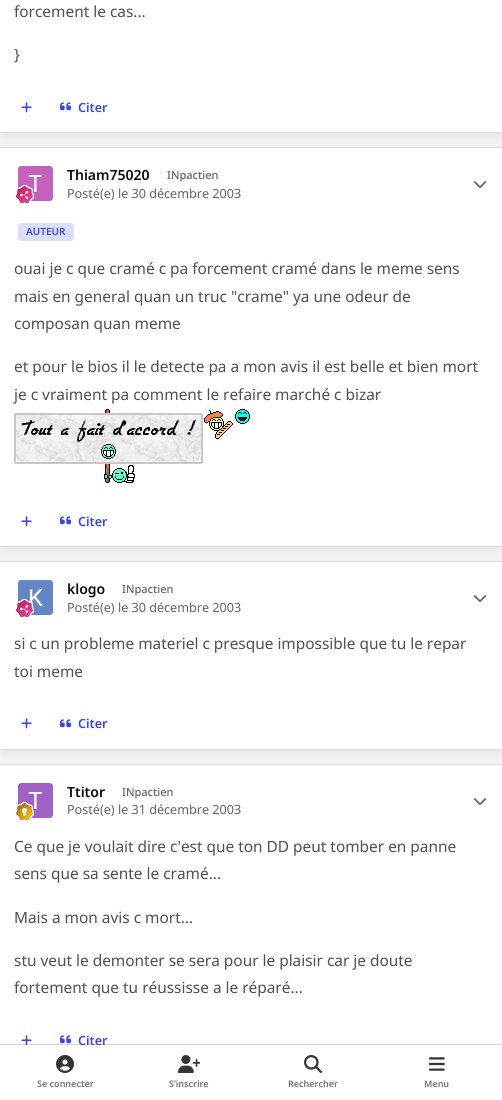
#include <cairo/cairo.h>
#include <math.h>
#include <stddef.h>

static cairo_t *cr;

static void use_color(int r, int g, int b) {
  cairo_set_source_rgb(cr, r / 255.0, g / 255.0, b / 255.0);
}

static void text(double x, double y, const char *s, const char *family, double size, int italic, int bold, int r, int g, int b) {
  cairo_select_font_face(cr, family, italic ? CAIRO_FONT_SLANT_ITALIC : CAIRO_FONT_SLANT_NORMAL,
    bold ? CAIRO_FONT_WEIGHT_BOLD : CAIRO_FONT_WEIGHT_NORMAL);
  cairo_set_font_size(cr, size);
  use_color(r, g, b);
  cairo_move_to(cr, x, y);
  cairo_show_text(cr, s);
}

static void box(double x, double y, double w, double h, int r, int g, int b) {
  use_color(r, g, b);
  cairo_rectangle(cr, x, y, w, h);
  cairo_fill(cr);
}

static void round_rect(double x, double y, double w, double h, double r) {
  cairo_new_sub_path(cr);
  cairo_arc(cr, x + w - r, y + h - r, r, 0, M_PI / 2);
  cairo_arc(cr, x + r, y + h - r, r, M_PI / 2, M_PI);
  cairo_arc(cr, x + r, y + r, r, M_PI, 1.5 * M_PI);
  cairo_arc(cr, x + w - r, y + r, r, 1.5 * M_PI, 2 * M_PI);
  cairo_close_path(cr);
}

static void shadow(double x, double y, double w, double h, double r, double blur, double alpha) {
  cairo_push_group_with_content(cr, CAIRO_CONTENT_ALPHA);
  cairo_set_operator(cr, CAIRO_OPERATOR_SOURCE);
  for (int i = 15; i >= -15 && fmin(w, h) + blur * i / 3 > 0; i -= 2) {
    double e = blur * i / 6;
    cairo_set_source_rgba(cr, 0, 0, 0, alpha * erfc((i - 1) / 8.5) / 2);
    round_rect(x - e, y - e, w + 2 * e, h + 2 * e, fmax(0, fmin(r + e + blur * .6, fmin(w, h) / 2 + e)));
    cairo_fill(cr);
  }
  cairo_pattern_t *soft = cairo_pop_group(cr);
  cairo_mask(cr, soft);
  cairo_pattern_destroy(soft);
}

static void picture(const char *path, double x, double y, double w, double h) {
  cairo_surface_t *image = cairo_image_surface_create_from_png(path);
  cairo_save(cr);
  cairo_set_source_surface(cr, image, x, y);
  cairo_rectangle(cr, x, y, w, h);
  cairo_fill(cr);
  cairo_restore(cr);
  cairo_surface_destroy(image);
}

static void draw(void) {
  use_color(242, 242, 242);
  cairo_paint(cr);
  use_color(3, 3, 3);
  shadow(3, -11, 496, 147, 0, 3.5, 0.05);
  box(0, 0, 502, 132, 255, 255, 255);
  box(0, 132, 502, 1, 219, 219, 219);
  picture("img_01.png", 21, 102, 11, 11);
  picture("img_02.png", 60, 102, 12, 9);
  use_color(3, 3, 3);
  shadow(3, 156, 496, 394, 0, 3.5, 0.05);
  box(0, 148, 502, 398, 255, 255, 255);
  box(0, 147, 502, 1, 219, 219, 219);
  box(0, 546, 502, 1, 219, 219, 219);
  picture("img_03.png", 18, 166, 35, 35);
  picture("img_04.png", 16, 185, 18, 18);
  picture("img_05.png", 474, 181, 12, 7);
  use_color(219, 223, 255);
  round_rect(18, 223, 56, 18, 4);
  cairo_fill(cr);
  picture("img_06.png", 14, 409, 189, 74);
  picture("img_07.png", 204, 410, 29, 29);
  picture("img_08.png", 235, 409, 15, 15);
  picture("img_01.png", 21, 516, 11, 11);
  picture("img_02.png", 60, 516, 12, 9);
  use_color(3, 3, 3);
  shadow(3, 570, 496, 183, 0, 3.5, 0.05);
  box(0, 562, 502, 187, 255, 255, 255);
  box(0, 561, 502, 1, 219, 219, 219);
  box(0, 749, 502, 1, 219, 219, 219);
  picture("img_09.png", 18, 580, 35, 35);
  picture("img_10.png", 16, 599, 18, 18);
  picture("img_05.png", 474, 595, 12, 7);
  picture("img_01.png", 21, 718, 11, 11);
  picture("img_02.png", 60, 719, 12, 9);
  box(0, 765, 502, 280, 255, 255, 255);
  box(0, 764, 502, 1, 219, 219, 219);
  picture("img_11.png", 18, 783, 35, 35);
  picture("img_12.png", 16, 802, 18, 18);
  picture("img_05.png", 474, 798, 12, 7);
  picture("img_13.png", 21, 1035, 11, 10);
  picture("img_02.png", 60, 1035, 12, 9);
  text(14, 17, "forcement le cas...", "Noto Sans", 15.4, 0, 0, 80, 80, 80);
  text(14, 60, "}", "Noto Sans", 15.4, 0, 0, 80, 80, 80);
  text(78, 112, "Citer", "Noto Sans SemiBold", 12.6, 0, 0, 60, 70, 230);
  text(67, 180, "Thiam75020", "Noto Sans SemiBold", 14, 0, 0, 11, 11, 11);
  text(167, 179, "INpactien", "Noto Sans Medium", 11, 0, 0, 99, 99, 99);
  text(67, 198, "Posté(e) le 30 décembre 2003", "Noto Sans", 12.6, 0, 0, 99, 99, 99);
  text(26, 235, "AUTEUR", "Noto Sans SemiBold", 10, 0, 0, 60, 70, 230);
  text(14, 274, "ouai je c que cramé c pa forcement cramé dans le meme sens", "Noto Sans", 15.4, 0, 0, 80, 80, 80);
  text(14, 302, "mais en general quan un truc \"crame\" ya une odeur de", "Noto Sans", 15.4, 0, 0, 80, 80, 80);
  text(14, 329, "composan quan meme", "Noto Sans", 15.4, 0, 0, 80, 80, 80);
  text(14, 372, "et pour le bios il le detecte pa a mon avis il est belle et bien mort", "Noto Sans", 15.4, 0, 0, 80, 80, 80);
  text(14, 400, "je c vraiment pa comment le refaire marché c bizar", "Noto Sans", 15.4, 0, 0, 80, 80, 80);
  text(78, 526, "Citer", "Noto Sans SemiBold", 12.6, 0, 0, 60, 70, 230);
  text(67, 594, "klogo", "Noto Sans SemiBold", 14, 0, 0, 11, 11, 11);
  text(122, 593, "INpactien", "Noto Sans Medium", 11, 0, 0, 99, 99, 99);
  text(67, 612, "Posté(e) le 30 décembre 2003", "Noto Sans", 12.6, 0, 0, 99, 99, 99);
  text(14, 649, "si c un probleme materiel c presque impossible que tu le repar", "Noto Sans", 15.4, 0, 0, 80, 80, 80);
  text(14, 677, "toi meme", "Noto Sans", 15.4, 0, 0, 80, 80, 80);
  text(78, 728, "Citer", "Noto Sans SemiBold", 12.6, 0, 0, 60, 70, 230);
  text(67, 797, "Ttitor", "Noto Sans SemiBold", 14, 0, 0, 11, 11, 11);
  text(122, 796, "INpactien", "Noto Sans Medium", 11, 0, 0, 99, 99, 99);
  text(67, 814, "Posté(e) le 31 décembre 2003", "Noto Sans", 12.6, 0, 0, 99, 99, 99);
  text(14, 852, "Ce que je voulait dire c'est que ton DD peut tomber en panne", "Noto Sans", 15.4, 0, 0, 80, 80, 80);
  text(14, 879, "sens que sa sente le cramé...", "Noto Sans", 15.4, 0, 0, 80, 80, 80);
  text(14, 923, "Mais a mon avis c mort...", "Noto Sans", 15.4, 0, 0, 80, 80, 80);
  text(14, 966, "stu veut le demonter se sera pour le plaisir car je doute", "Noto Sans", 15.4, 0, 0, 80, 80, 80);
  text(14, 993, "fortement que tu réussisse a le réparé...", "Noto Sans", 15.4, 0, 0, 80, 80, 80);
  text(78, 1045, "Citer", "Noto Sans SemiBold", 12.6, 0, 0, 60, 70, 230);
  cairo_set_source_rgba(cr, 0.314, 0.314, 0.314, 0.25);
  cairo_rectangle(cr, 0, 1044, 502, 1);
  cairo_fill(cr);
  box(0, 1045, 502, 55, 255, 255, 255);
  picture("img_14.png", 56, 1055, 18, 18);
  text(37, 1087, "Se connecter", "Noto Sans SemiBold", 9, 0, 0, 114, 114, 114);
  picture("img_15.png", 178, 1055, 22, 18);
  text(169, 1087, "S’inscrire", "Noto Sans SemiBold", 9, 0, 0, 114, 114, 114);
  picture("img_16.png", 304, 1055, 18, 18);
  text(288, 1087, "Rechercher", "Noto Sans SemiBold", 9, 0, 0, 114, 114, 114);
  picture("img_17.png", 429, 1057, 16, 14);
  text(424, 1087, "Menu", "Noto Sans SemiBold", 9, 0, 0, 114, 114, 114);
}

int main(void) {
  cairo_surface_t *surface = cairo_image_surface_create(CAIRO_FORMAT_RGB24, 502, 1100);
  cr = cairo_create(surface);
  cairo_font_options_t *options = cairo_font_options_create();
  cairo_font_options_set_hint_metrics(options, CAIRO_HINT_METRICS_OFF);
  cairo_font_options_set_hint_style(options, CAIRO_HINT_STYLE_NONE);
  cairo_set_font_options(cr, options);
  cairo_set_miter_limit(cr, 4);
  draw();
  cairo_surface_write_to_png(surface, "out.png");
  cairo_font_options_destroy(options);
  cairo_destroy(cr);
  cairo_surface_destroy(surface);
  return 0;
}
